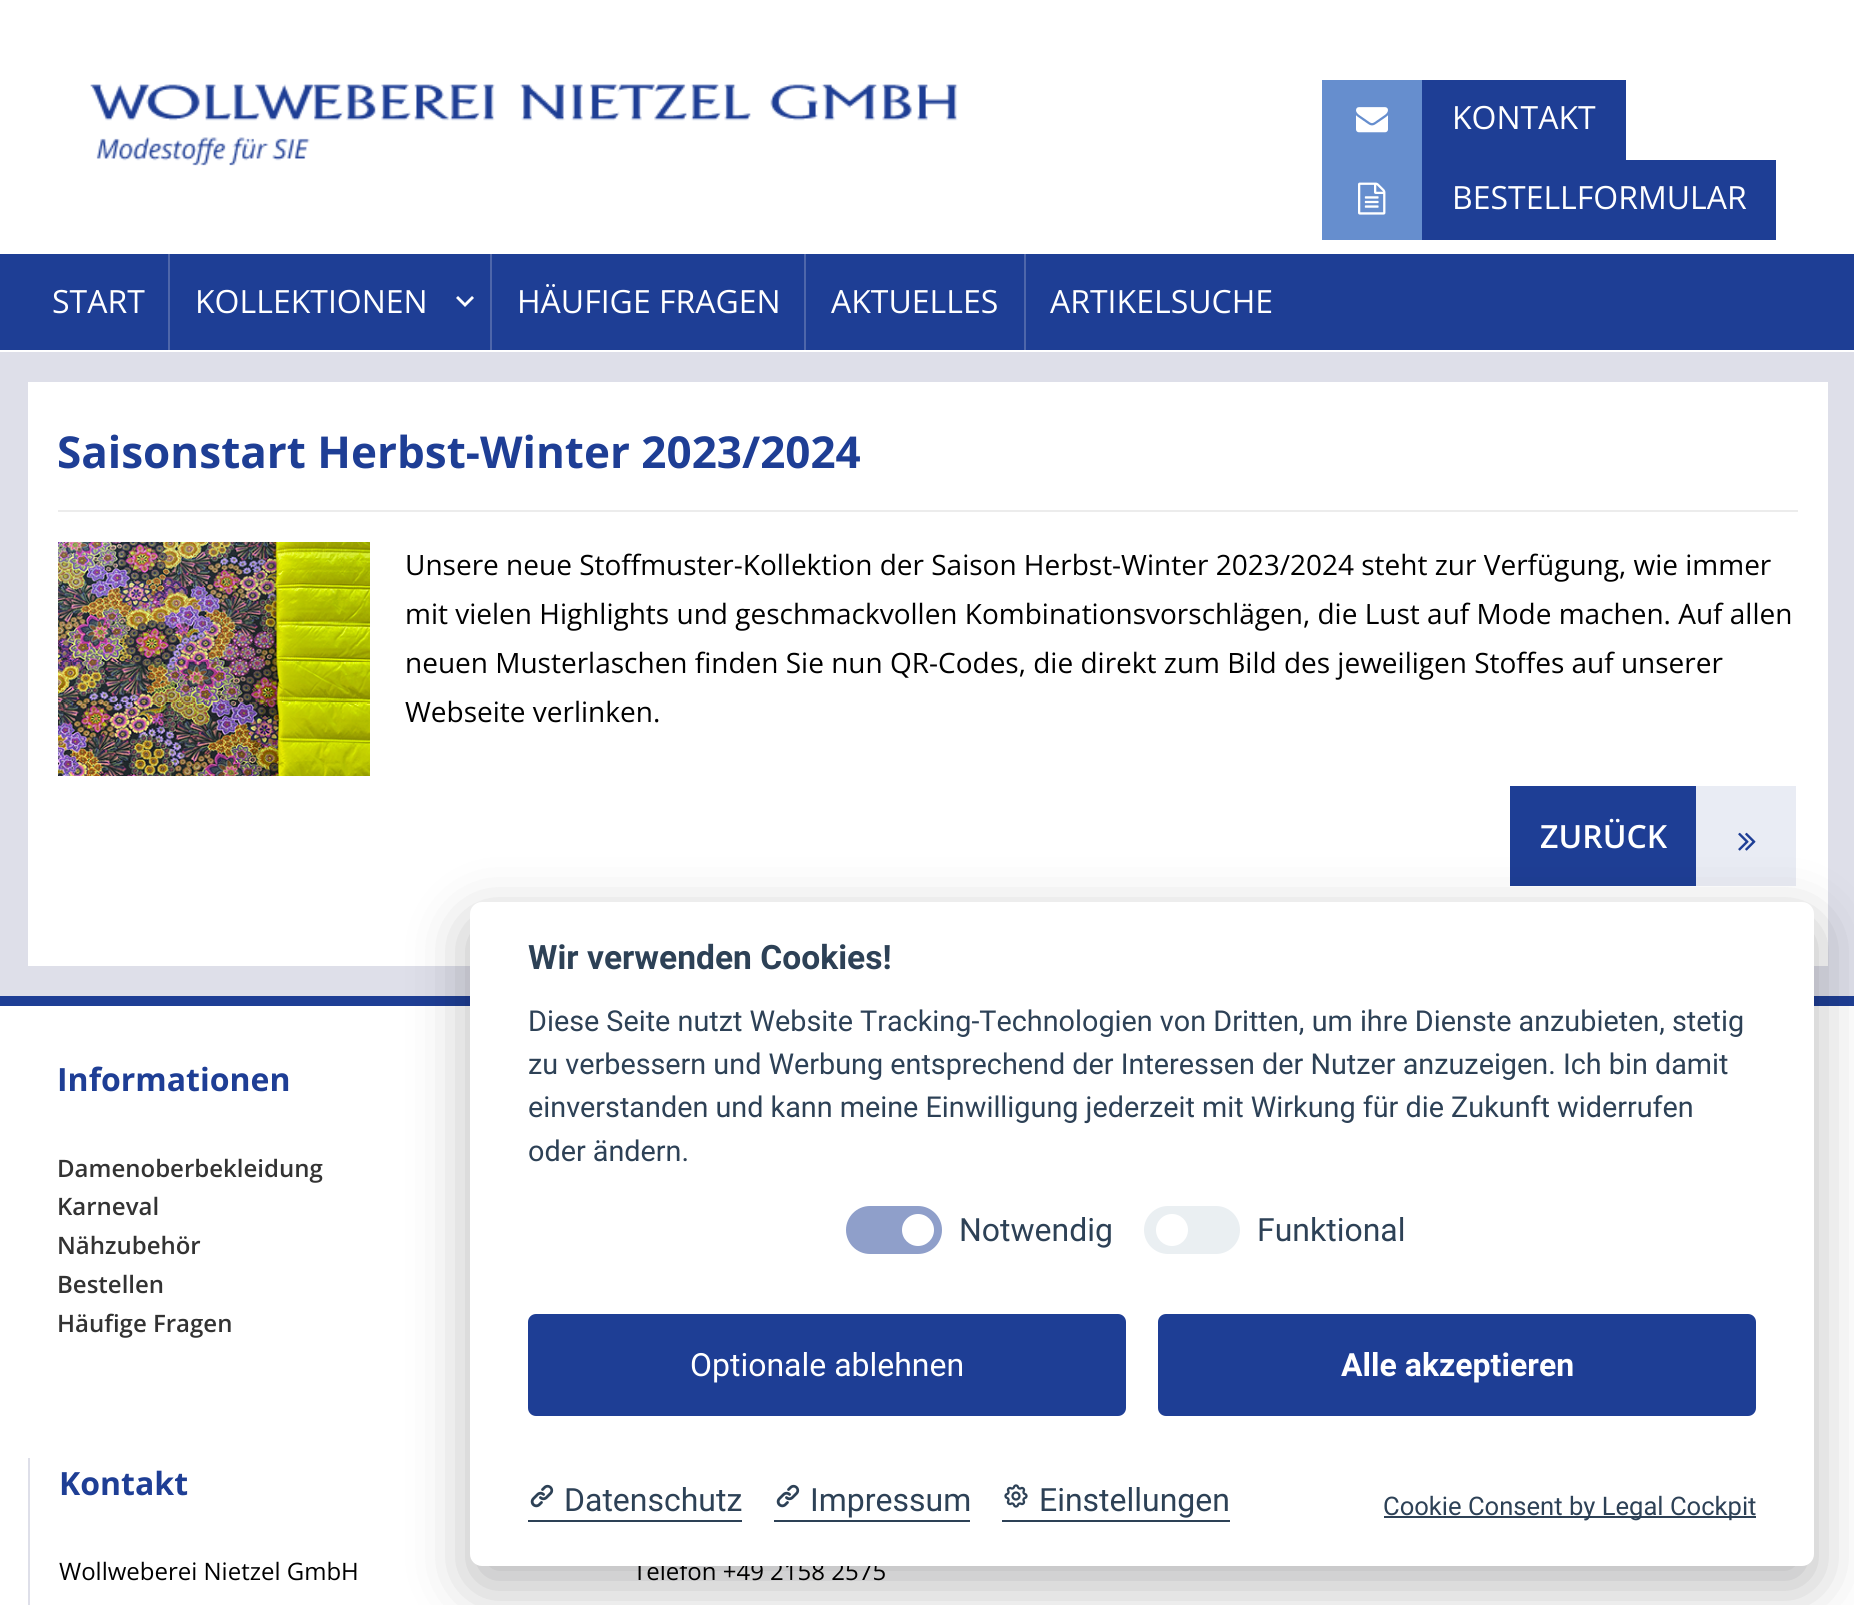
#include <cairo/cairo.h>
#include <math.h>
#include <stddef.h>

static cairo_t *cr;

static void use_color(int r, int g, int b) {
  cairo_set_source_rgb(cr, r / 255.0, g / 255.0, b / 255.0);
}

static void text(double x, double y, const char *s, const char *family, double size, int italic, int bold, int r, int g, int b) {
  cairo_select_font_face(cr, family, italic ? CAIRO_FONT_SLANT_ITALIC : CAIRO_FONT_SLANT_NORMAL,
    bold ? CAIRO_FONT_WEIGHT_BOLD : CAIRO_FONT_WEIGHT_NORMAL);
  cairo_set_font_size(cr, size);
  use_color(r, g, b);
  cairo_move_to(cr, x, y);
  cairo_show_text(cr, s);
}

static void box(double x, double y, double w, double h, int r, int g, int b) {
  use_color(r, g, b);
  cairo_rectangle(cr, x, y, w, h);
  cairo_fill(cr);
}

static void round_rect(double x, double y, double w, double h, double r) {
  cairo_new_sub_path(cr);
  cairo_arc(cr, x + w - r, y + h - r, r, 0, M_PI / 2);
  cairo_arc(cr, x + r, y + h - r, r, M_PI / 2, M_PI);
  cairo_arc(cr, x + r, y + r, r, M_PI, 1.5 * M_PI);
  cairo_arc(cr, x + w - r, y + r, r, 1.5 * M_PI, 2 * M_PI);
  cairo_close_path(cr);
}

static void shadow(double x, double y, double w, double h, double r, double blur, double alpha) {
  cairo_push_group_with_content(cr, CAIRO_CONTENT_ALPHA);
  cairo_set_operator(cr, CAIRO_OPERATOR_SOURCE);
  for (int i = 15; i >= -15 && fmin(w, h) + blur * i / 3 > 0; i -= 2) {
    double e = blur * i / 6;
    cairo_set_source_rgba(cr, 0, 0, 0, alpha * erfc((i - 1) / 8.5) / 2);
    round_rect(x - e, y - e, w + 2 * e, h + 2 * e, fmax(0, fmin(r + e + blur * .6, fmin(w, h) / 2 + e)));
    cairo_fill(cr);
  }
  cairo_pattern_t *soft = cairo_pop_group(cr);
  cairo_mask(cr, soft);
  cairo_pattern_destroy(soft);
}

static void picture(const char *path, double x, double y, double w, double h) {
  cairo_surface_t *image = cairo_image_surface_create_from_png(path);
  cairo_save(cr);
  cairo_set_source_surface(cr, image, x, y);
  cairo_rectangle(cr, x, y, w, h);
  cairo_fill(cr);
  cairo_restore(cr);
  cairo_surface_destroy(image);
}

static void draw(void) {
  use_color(255, 255, 255);
  cairo_paint(cr);
  picture("img_01.png", 90, 84, 868, 82);
  box(1422, 80, 204, 80, 30, 62, 149);
  box(1322, 80, 100, 160, 102, 142, 206);
  picture("img_02.png", 1356, 107, 32, 26);
  box(1422, 160, 354, 80, 30, 62, 149);
  picture("img_03.png", 1358, 182, 28, 33);
  box(0, 254, 1854, 96, 30, 62, 149);
  box(168, 254, 2, 96, 78, 102, 170);
  box(490, 254, 2, 96, 78, 102, 170);
  use_color(255, 255, 255);
  cairo_new_path(cr);
  cairo_move_to(cr, 472, 296);
  cairo_line_to(cr, 474, 298);
  cairo_line_to(cr, 465, 307);
  cairo_line_to(cr, 456, 298);
  cairo_line_to(cr, 458, 296);
  cairo_line_to(cr, 465, 303);
  cairo_close_path(cr);
  cairo_fill(cr);
  box(804, 254, 2, 96, 78, 102, 170);
  box(1024, 254, 2, 96, 78, 102, 170);
  box(0, 352, 1854, 644, 222, 223, 233);
  box(28, 382, 1800, 584, 255, 255, 255);
  box(58, 510, 1740, 2, 236, 236, 236);
  picture("img_04.png", 58, 542, 312, 234);
  box(1510, 786, 186, 100, 30, 62, 149);
  box(1696, 786, 100, 100, 233, 236, 244);
  picture("img_05.png", 1738, 832, 18, 19);
  box(0, 996, 1854, 10, 30, 62, 149);
  box(28, 1458, 2, 147, 222, 223, 233);
  use_color(2, 2, 3);
  shadow(470, 922, 1344, 664, 12, 30, 0.28);
  text(1452, 129, "KONTAKT", "Open Sans", 32, 0, 0, 255, 255, 255);
  text(1452, 209, "BESTELLFORMULAR", "Open Sans", 32, 0, 0, 255, 255, 255);
  text(52, 313, "START", "Open Sans", 32, 0, 0, 255, 255, 255);
  text(195, 313, "KOLLEKTIONEN", "Open Sans", 32, 0, 0, 255, 255, 255);
  text(517, 313, "HÄUFIGE FRAGEN", "Open Sans", 32, 0, 0, 255, 255, 255);
  text(831, 313, "AKTUELLES", "Open Sans", 32, 0, 0, 255, 255, 255);
  text(1050, 313, "ARTIKELSUCHE", "Open Sans", 32, 0, 0, 255, 255, 255);
  text(57, 468, "Saisonstart Herbst-Winter 2023/2024", "Open Sans", 44, 0, 1, 30, 62, 149);
  text(405, 575, "Unsere neue Stoffmuster-Kollektion der Saison Herbst-Winter 2023/2024 steht zur Verfügung, wie immer", "Open Sans", 28, 0, 0, 0, 0, 0);
  text(405, 624, "mit vielen Highlights und geschmackvollen Kombinationsvorschlägen, die Lust auf Mode machen. Auf allen", "Open Sans", 28, 0, 0, 0, 0, 0);
  text(405, 673, "neuen Musterlaschen finden Sie nun QR-Codes, die direkt zum Bild des jeweiligen Stoffes auf unserer", "Open Sans", 28, 0, 0, 0, 0, 0);
  text(405, 722, "Webseite verlinken.", "Open Sans", 28, 0, 0, 0, 0, 0);
  text(1540, 848, "ZURÜCK", "Open Sans SemiBold", 32, 0, 0, 255, 255, 255);
  text(57, 1091, "Informationen", "Open Sans", 32, 0, 1, 30, 62, 149);
  text(57, 1177, "Damenoberbekleidung", "Open Sans SemiBold", 24, 0, 0, 51, 51, 51);
  text(57, 1215, "Karneval", "Open Sans SemiBold", 24, 0, 0, 51, 51, 51);
  text(57, 1254, "Nähzubehör", "Open Sans SemiBold", 24, 0, 0, 51, 51, 51);
  text(57, 1293, "Bestellen", "Open Sans SemiBold", 24, 0, 0, 51, 51, 51);
  text(57, 1332, "Häufige Fragen", "Open Sans SemiBold", 24, 0, 0, 51, 51, 51);
  text(59, 1495, "Kontakt", "Open Sans", 32, 0, 1, 30, 62, 149);
  text(59, 1580, "Wollweberei Nietzel GmbH", "Open Sans", 24, 0, 0, 0, 0, 0);
  text(633, 1580, "Telefon +49 2158 2575", "Open Sans", 24, 0, 0, 0, 0, 0);
  use_color(255, 255, 255);
  round_rect(470, 902, 1344, 664, 12);
  cairo_fill(cr);
  text(528, 969, "Wir verwenden Cookies!", "Roboto", 33.6, 0, 1, 45, 65, 86);
  text(528, 1031, "Diese Seite nutzt Website Tracking-Technologien von Dritten, um ihre Dienste anzubieten, stetig", "Roboto", 28.8, 0, 0, 45, 65, 86);
  text(528, 1074, "zu verbessern und Werbung entsprechend der Interessen der Nutzer anzuzeigen. Ich bin damit", "Roboto", 28.8, 0, 0, 45, 65, 86);
  text(528, 1117, "einverstanden und kann meine Einwilligung jederzeit mit Wirkung für die Zukunft widerrufen", "Roboto", 28.8, 0, 0, 45, 65, 86);
  text(528, 1161, "oder ändern.", "Roboto", 28.8, 0, 0, 45, 65, 86);
  use_color(143, 159, 202);
  round_rect(846, 1206, 96, 48, 24);
  cairo_fill(cr);
  use_color(255, 255, 255);
  cairo_arc(cr, 918, 1230, 16, 0, 2 * M_PI);
  cairo_fill(cr);
  text(959, 1241, "Notwendig", "Roboto", 32, 0, 0, 45, 65, 86);
  use_color(234, 239, 242);
  round_rect(1144, 1206, 96, 48, 24);
  cairo_fill(cr);
  use_color(255, 255, 255);
  cairo_arc(cr, 1172, 1230, 16, 0, 2 * M_PI);
  cairo_fill(cr);
  text(1257, 1241, "Funktional", "Roboto", 32, 0, 0, 45, 65, 86);
  use_color(30, 62, 149);
  round_rect(528, 1314, 598, 102, 8);
  cairo_fill(cr);
  text(690, 1376, "Optionale ablehnen", "Roboto", 32, 0, 0, 255, 255, 255);
  use_color(30, 62, 149);
  round_rect(1158, 1314, 598, 102, 8);
  cairo_fill(cr);
  text(1341, 1376, "Alle akzeptieren", "Roboto", 32, 0, 1, 255, 255, 255);
  box(528, 1520, 214, 2, 45, 65, 86);
  picture("img_06.png", 530, 1484, 24, 24);
  text(564, 1511, "Datenschutz", "Roboto", 32, 0, 0, 45, 65, 86);
  box(774, 1520, 196, 2, 45, 65, 86);
  picture("img_06.png", 776, 1484, 24, 24);
  text(810, 1511, "Impressum", "Roboto", 32, 0, 0, 45, 65, 86);
  box(1002, 1520, 228, 2, 45, 65, 86);
  picture("img_07.png", 1004, 1484, 24, 24);
  text(1039, 1511, "Einstellungen", "Roboto", 32, 0, 0, 45, 65, 86);
  box(1384, 1516, 372, 2, 45, 65, 86);
  text(1383, 1515, "Cookie Consent by Legal Cockpit", "Roboto", 25.6, 0, 0, 45, 65, 86);
}

int main(void) {
  cairo_surface_t *surface = cairo_image_surface_create(CAIRO_FORMAT_RGB24, 1854, 1605);
  cr = cairo_create(surface);
  cairo_font_options_t *options = cairo_font_options_create();
  cairo_font_options_set_hint_metrics(options, CAIRO_HINT_METRICS_OFF);
  cairo_font_options_set_hint_style(options, CAIRO_HINT_STYLE_NONE);
  cairo_set_font_options(cr, options);
  cairo_set_miter_limit(cr, 4);
  draw();
  cairo_surface_write_to_png(surface, "out.png");
  cairo_font_options_destroy(options);
  cairo_destroy(cr);
  cairo_surface_destroy(surface);
  return 0;
}
